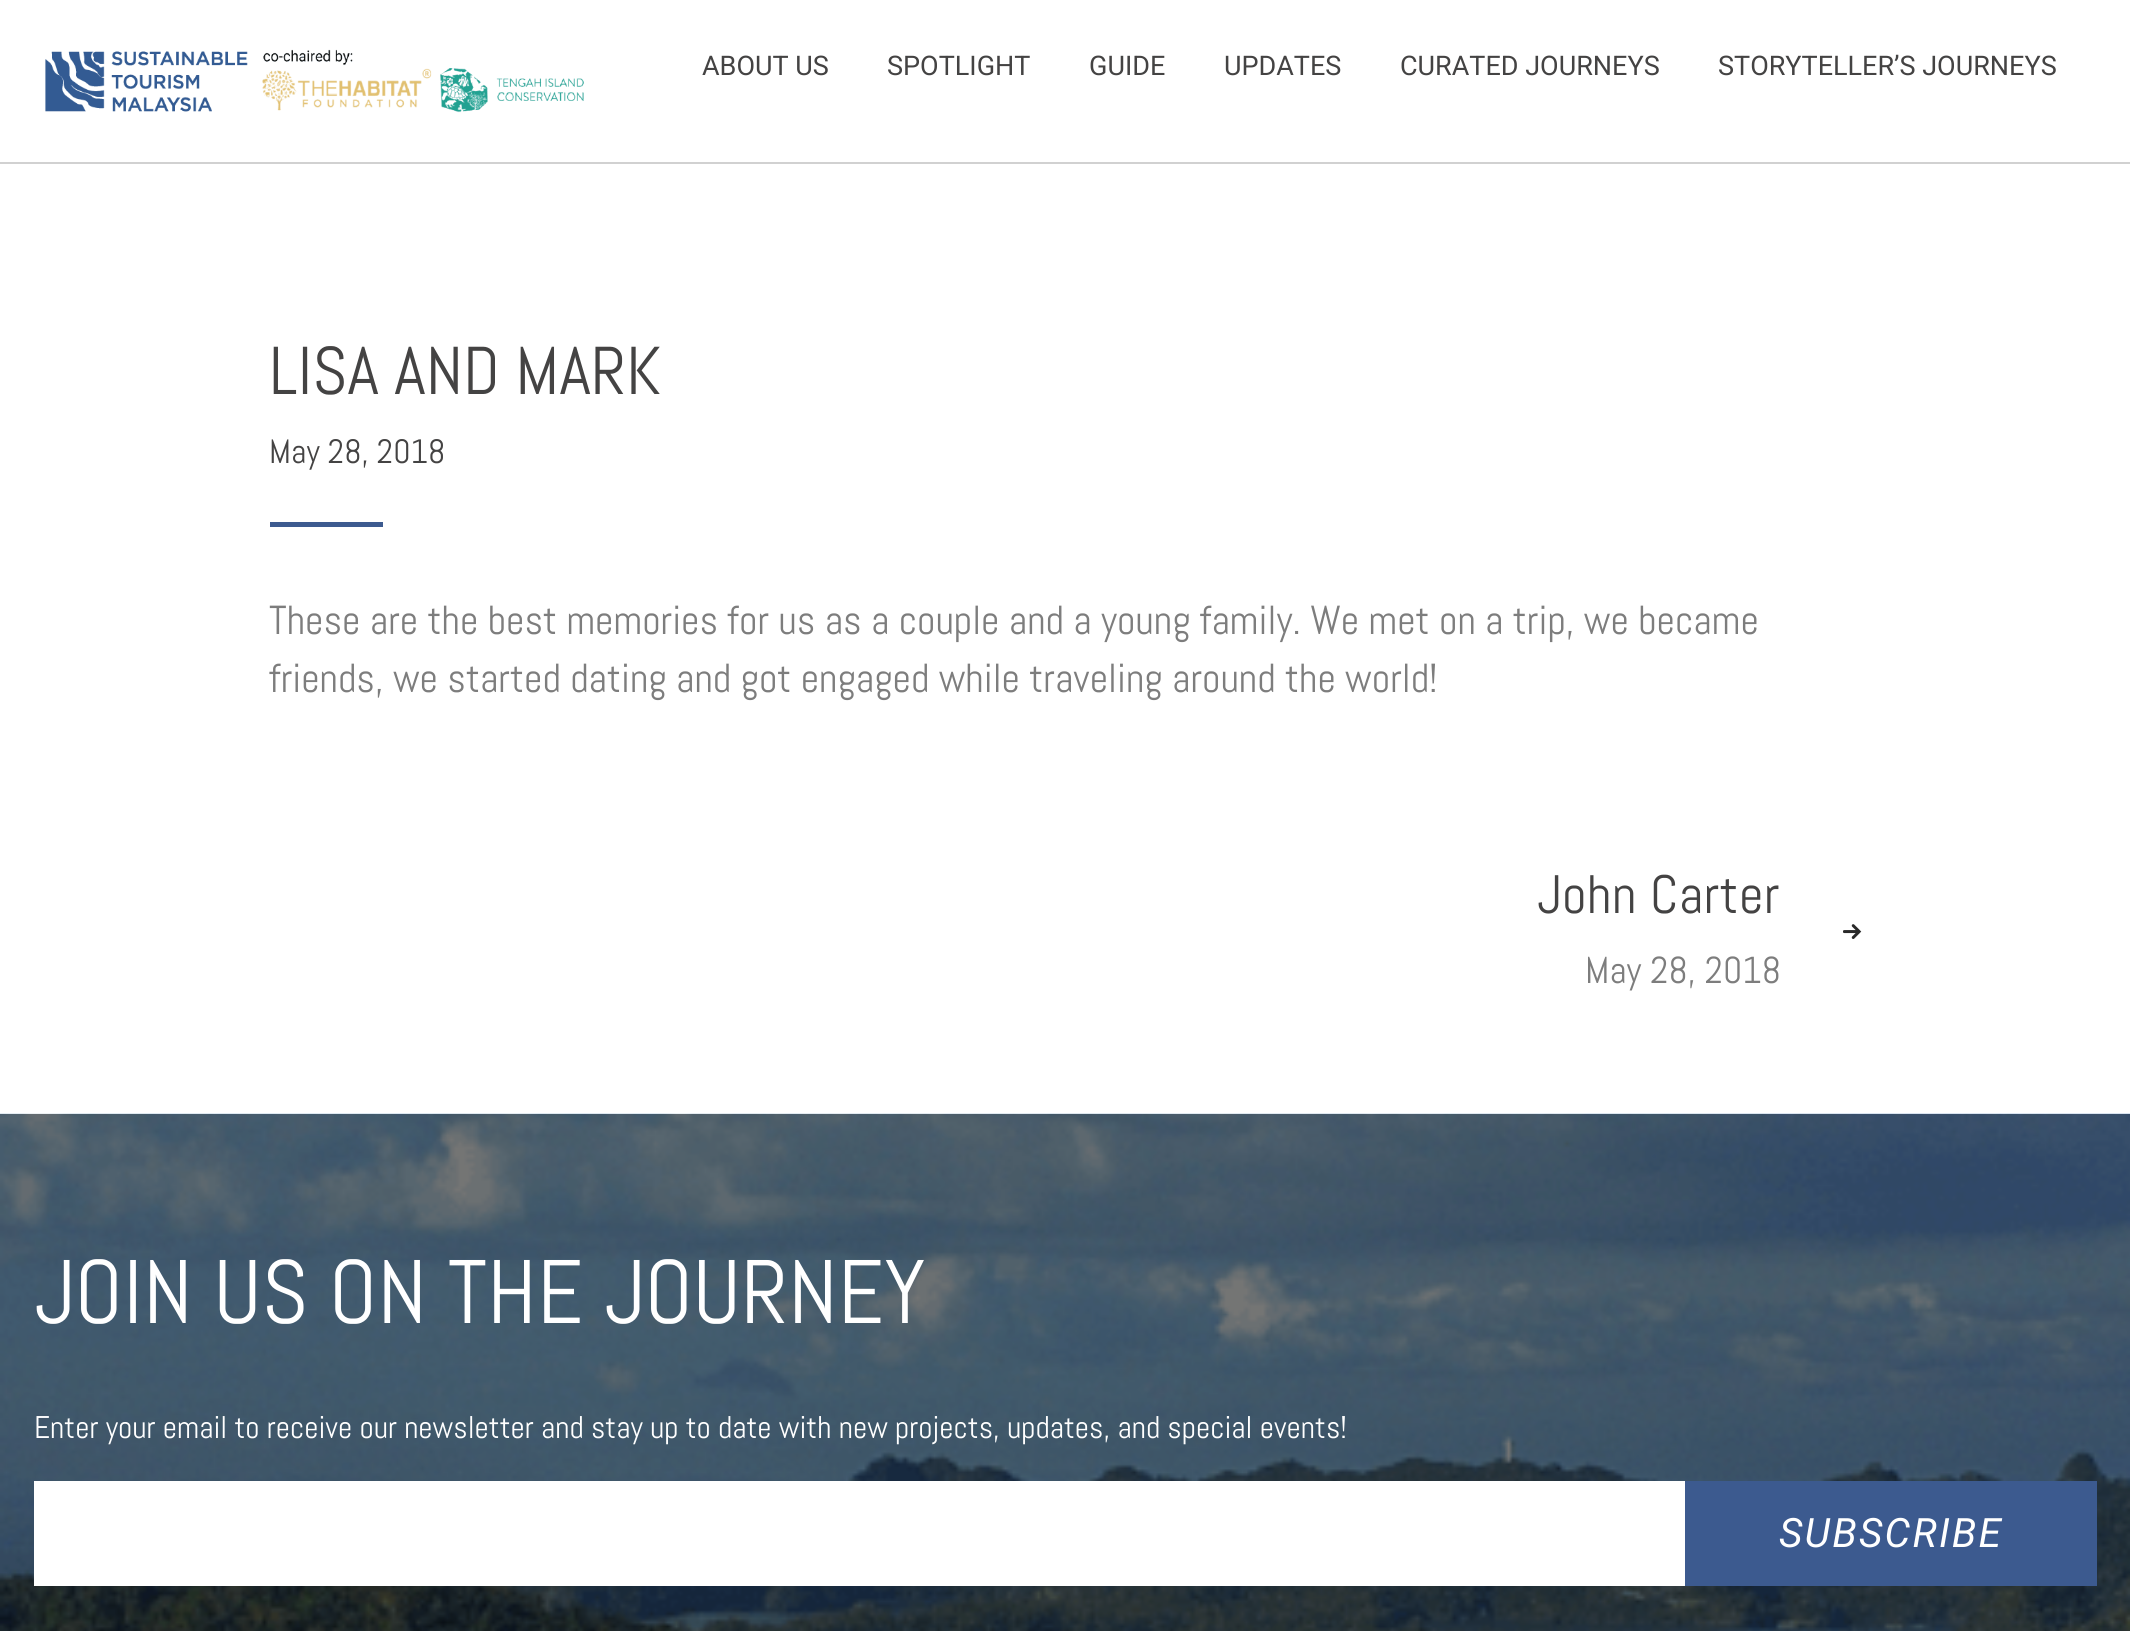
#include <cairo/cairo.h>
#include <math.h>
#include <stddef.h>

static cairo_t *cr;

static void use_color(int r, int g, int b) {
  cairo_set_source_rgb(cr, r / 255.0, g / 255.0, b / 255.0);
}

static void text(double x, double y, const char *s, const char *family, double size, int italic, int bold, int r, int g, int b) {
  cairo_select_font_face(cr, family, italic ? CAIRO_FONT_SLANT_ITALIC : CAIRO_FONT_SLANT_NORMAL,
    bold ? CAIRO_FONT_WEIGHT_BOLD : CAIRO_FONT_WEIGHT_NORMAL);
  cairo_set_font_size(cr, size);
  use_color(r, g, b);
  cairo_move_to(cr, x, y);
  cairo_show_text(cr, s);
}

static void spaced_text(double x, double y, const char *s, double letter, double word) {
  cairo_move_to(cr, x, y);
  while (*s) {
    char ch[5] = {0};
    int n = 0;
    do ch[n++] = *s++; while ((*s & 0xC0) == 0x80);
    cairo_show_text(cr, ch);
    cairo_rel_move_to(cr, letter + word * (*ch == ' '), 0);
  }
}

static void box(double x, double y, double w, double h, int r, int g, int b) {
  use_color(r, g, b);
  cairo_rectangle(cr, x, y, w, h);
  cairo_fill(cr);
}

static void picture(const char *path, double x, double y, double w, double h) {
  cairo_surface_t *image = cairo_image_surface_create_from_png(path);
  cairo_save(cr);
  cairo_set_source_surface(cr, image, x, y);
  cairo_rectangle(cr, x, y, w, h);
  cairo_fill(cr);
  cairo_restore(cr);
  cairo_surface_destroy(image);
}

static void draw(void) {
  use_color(255, 255, 255);
  cairo_paint(cr);
  box(0, 162, 2130, 2, 209, 209, 209);
  picture("img_01.png", 45, 49, 539, 64);
  box(270, 522, 113, 5, 60, 90, 143);
  picture("img_02.png", 1843, 924, 19, 15);
  picture("img_03.png", 0, 1113, 2130, 518);
  box(34, 1481, 1651, 105, 255, 255, 255);
  box(1685, 1481, 412, 105, 60, 90, 143);
  text(702, 75, "ABOUT US", "Roboto", 27, 0, 0, 68, 67, 67);
  text(887, 75, "SPOTLIGHT", "Roboto", 27, 0, 0, 68, 67, 67);
  text(1089, 75, "GUIDE", "Roboto", 27, 0, 0, 68, 67, 67);
  text(1224, 75, "UPDATES", "Roboto", 27, 0, 0, 68, 67, 67);
  text(1400, 75, "CURATED JOURNEYS", "Roboto", 27, 0, 0, 68, 67, 67);
  text(1718, 75, "STORYTELLER’S JOURNEYS", "Roboto", 27, 0, 0, 68, 67, 67);
  text(269, 394, "LISA AND MARK", "Abel", 67.5, 0, 0, 68, 67, 67);
  text(269, 463, "May 28, 2018", "Abel", 33.75, 0, 0, 68, 67, 67);
  text(269, 634, "These are the best memories for us as a couple and a young family. We met on a trip, we became", "Abel", 40.5, 0, 0, 125, 125, 125);
  text(269, 692, "friends, we started dating and got engaged while traveling around the world!", "Abel", 40.5, 0, 0, 125, 125, 125);
  cairo_set_font_size(cr, 54);
  use_color(68, 67, 67);
  spaced_text(1537, 913, "John Carter", 0.5, 0);
  text(1585, 983, "May 28, 2018", "Abel", 37.5, 0, 0, 125, 125, 125);
  text(34, 1323, "JOIN US ON THE JOURNEY", "Abel", 90, 0, 0, 255, 255, 255);
  text(34, 1438, "Enter your email to receive our newsletter and stay up to date with new projects, updates, and special events!", "Abel", 31.35, 0, 0, 255, 255, 255);
  cairo_select_font_face(cr, "Roboto", CAIRO_FONT_SLANT_ITALIC, CAIRO_FONT_WEIGHT_NORMAL);
  cairo_set_font_size(cr, 40.5);
  spaced_text(1779, 1547, "SUBSCRIBE", 2.25, 0);
}

int main(void) {
  cairo_surface_t *surface = cairo_image_surface_create(CAIRO_FORMAT_RGB24, 2130, 1631);
  cr = cairo_create(surface);
  cairo_font_options_t *options = cairo_font_options_create();
  cairo_font_options_set_hint_metrics(options, CAIRO_HINT_METRICS_OFF);
  cairo_font_options_set_hint_style(options, CAIRO_HINT_STYLE_NONE);
  cairo_set_font_options(cr, options);
  cairo_set_miter_limit(cr, 4);
  draw();
  cairo_surface_write_to_png(surface, "out.png");
  cairo_font_options_destroy(options);
  cairo_destroy(cr);
  cairo_surface_destroy(surface);
  return 0;
}
